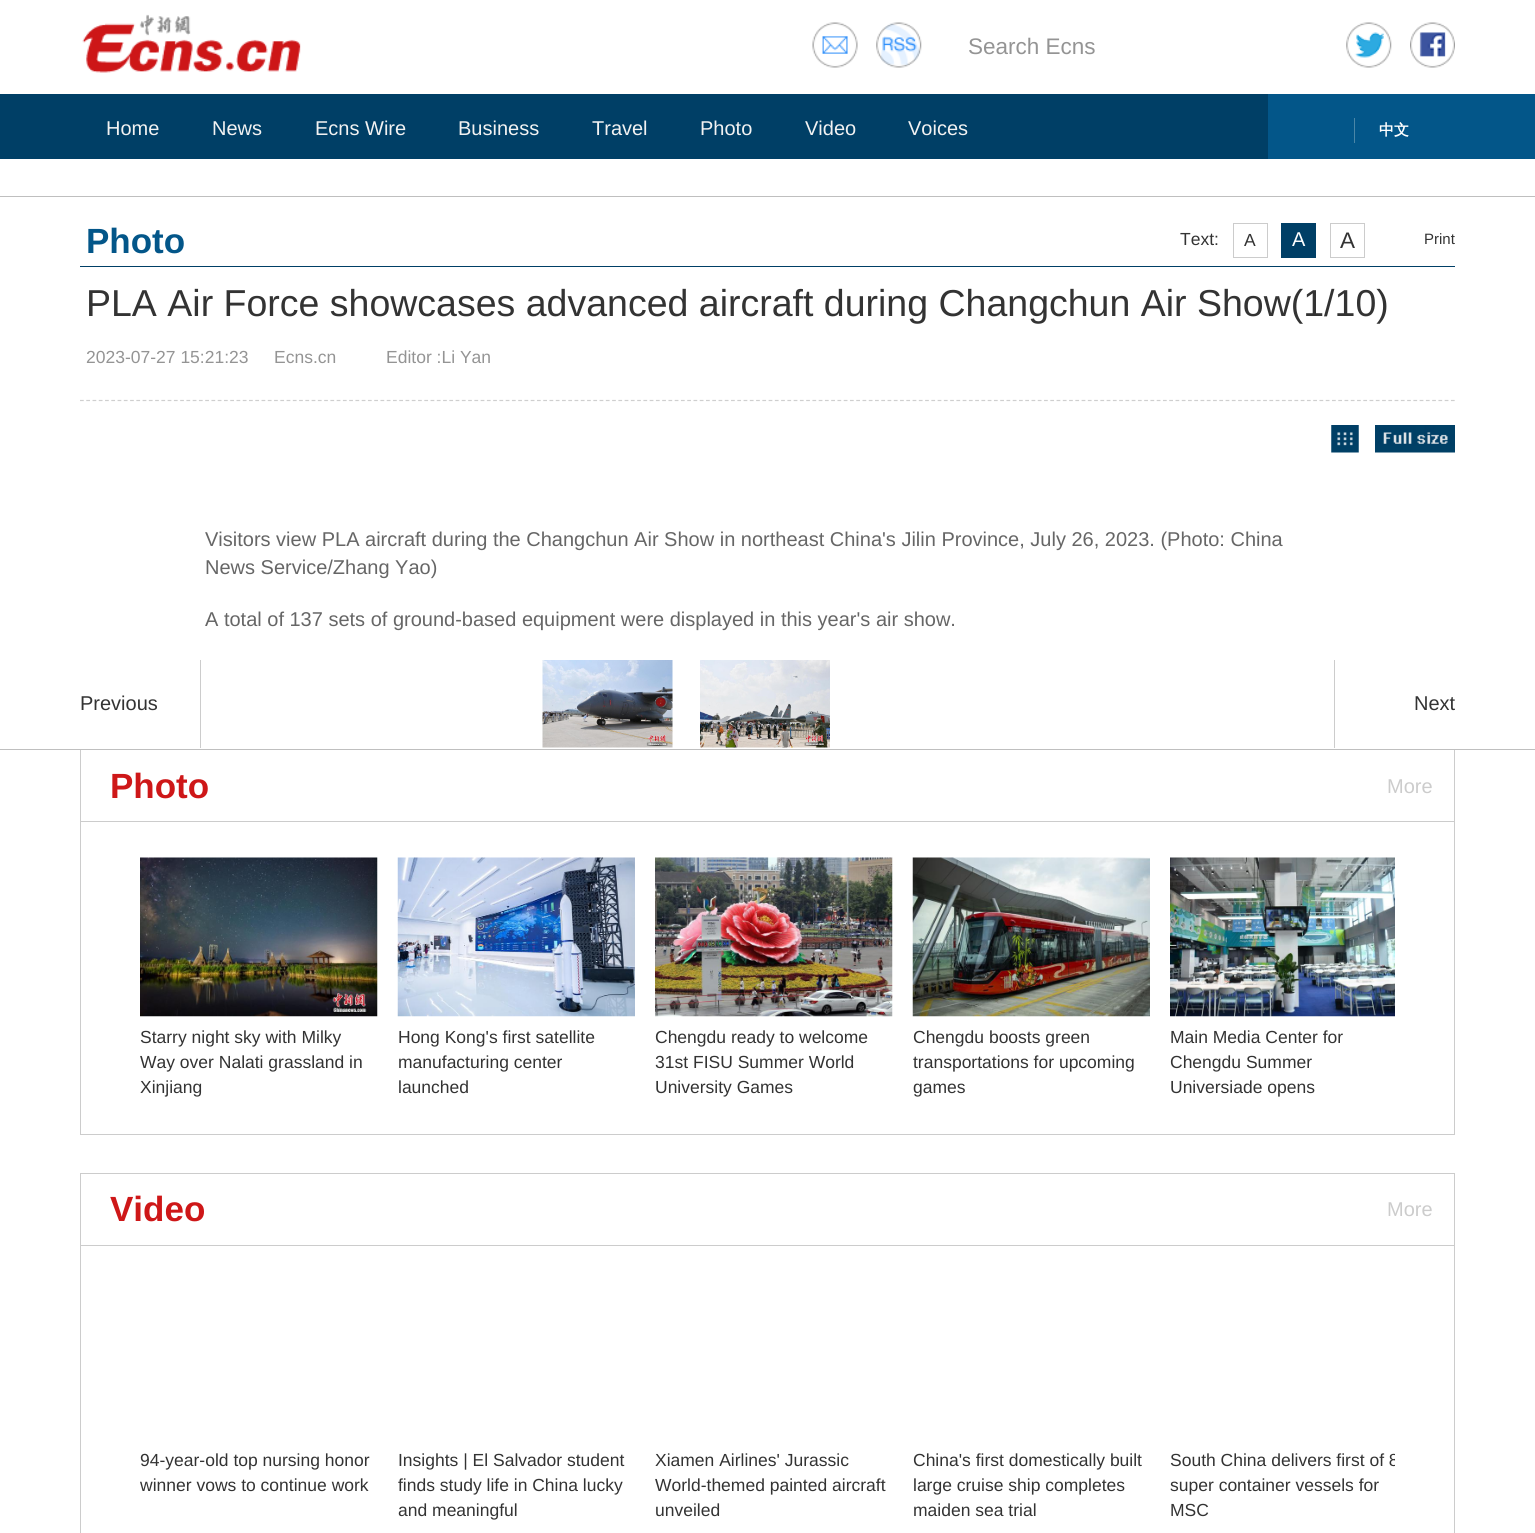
#include <cairo/cairo.h>
#include <math.h>
#include <stddef.h>

static cairo_t *cr;

static void use_color(int r, int g, int b) {
  cairo_set_source_rgb(cr, r / 255.0, g / 255.0, b / 255.0);
}

static void text(double x, double y, const char *s, const char *family, double size, int italic, int bold, int r, int g, int b) {
  cairo_select_font_face(cr, family, italic ? CAIRO_FONT_SLANT_ITALIC : CAIRO_FONT_SLANT_NORMAL,
    bold ? CAIRO_FONT_WEIGHT_BOLD : CAIRO_FONT_WEIGHT_NORMAL);
  cairo_set_font_size(cr, size);
  use_color(r, g, b);
  cairo_move_to(cr, x, y);
  cairo_show_text(cr, s);
}

static void box(double x, double y, double w, double h, int r, int g, int b) {
  use_color(r, g, b);
  cairo_rectangle(cr, x, y, w, h);
  cairo_fill(cr);
}

static void picture(const char *path, double x, double y, double w, double h) {
  cairo_surface_t *image = cairo_image_surface_create_from_png(path);
  cairo_save(cr);
  cairo_set_source_surface(cr, image, x, y);
  cairo_rectangle(cr, x, y, w, h);
  cairo_fill(cr);
  cairo_restore(cr);
  cairo_surface_destroy(image);
}

static void draw(void) {
  use_color(255, 255, 255);
  cairo_paint(cr);
  picture("img_01.png", 82, 14, 219, 59);
  picture("img_02.png", 812, 22, 46, 46);
  picture("img_03.png", 876, 22, 46, 46);
  picture("img_04.png", 1346, 22, 46, 46);
  picture("img_05.png", 1410, 22, 45, 46);
  box(0, 94, 1268, 65, 0, 63, 102);
  box(1268, 94, 267, 65, 3, 86, 137);
  box(1354, 118, 1, 25, 74, 134, 167);
  box(0, 196, 1535, 1, 191, 191, 191);
  box(80, 266, 1375, 1, 0, 63, 102);
  cairo_rectangle(cr, 1233.5, 223.5, 34, 34);
  use_color(204, 204, 204);
  cairo_set_line_width(cr, 1);
  cairo_stroke(cr);
  box(1281, 223, 35, 35, 0, 63, 102);
  cairo_rectangle(cr, 1330.5, 223.5, 34, 34);
  use_color(204, 204, 204);
  cairo_stroke(cr);
  cairo_new_path(cr);
  cairo_move_to(cr, 80, 400.5);
  cairo_line_to(cr, 1455, 400.5);
  use_color(207, 207, 207);
  cairo_set_line_width(cr, 1.2);
  cairo_set_dash(cr, (double[]){3.75, 2.51}, 2, 0);
  cairo_stroke(cr);
  picture("img_06.png", 1331, 425, 28, 28);
  picture("img_07.png", 1375, 425, 80, 28);
  box(200, 660, 1, 88, 204, 204, 204);
  picture("img_08.png", 542, 660, 131, 88);
  picture("img_09.png", 700, 660, 130, 88);
  box(1334, 660, 1, 88, 204, 204, 204);
  box(0, 749, 1535, 1, 191, 191, 191);
  box(1454, 750, 1, 385, 204, 204, 204);
  box(80, 821, 1375, 1, 204, 204, 204);
  box(80, 750, 1, 73, 204, 204, 204);
  box(80, 1134, 1375, 1, 204, 204, 204);
  box(80, 823, 1, 312, 204, 204, 204);
  picture("img_10.png", 140, 857, 238, 160);
  picture("img_11.png", 397, 857, 238, 160);
  picture("img_12.png", 655, 857, 238, 160);
  picture("img_13.png", 912, 857, 238, 160);
  picture("img_14.png", 1170, 857, 225, 160);
  cairo_rectangle(cr, 80.5, 1173.5, 1374, 72);
  cairo_set_line_width(cr, 1);
  cairo_set_dash(cr, NULL, 0, 0);
  cairo_stroke(cr);
  box(1454, 1246, 1, 287, 204, 204, 204);
  box(80, 1246, 1, 287, 204, 204, 204);
  text(968, 54, "Search Ecns", "Liberation Sans", 22.5, 0, 0, 148, 148, 148);
  text(106, 135, "Home", "Liberation Sans", 20, 0, 0, 242, 242, 242);
  text(212, 135, "News", "Liberation Sans", 20, 0, 0, 242, 242, 242);
  text(315, 135, "Ecns Wire", "Liberation Sans", 20, 0, 0, 242, 242, 242);
  text(458, 135, "Business", "Liberation Sans", 20, 0, 0, 242, 242, 242);
  text(592, 135, "Travel", "Liberation Sans", 20, 0, 0, 242, 242, 242);
  text(700, 135, "Photo", "Liberation Sans", 20, 0, 0, 242, 242, 242);
  text(805, 135, "Video", "Liberation Sans", 20, 0, 0, 242, 242, 242);
  text(908, 135, "Voices", "Liberation Sans", 20, 0, 0, 242, 242, 242);
  text(1379, 135, "中文", "WenQuanYi Zen Hei", 15, 0, 1, 255, 255, 255);
  text(86, 253, "Photo", "Liberation Sans", 35, 0, 1, 3, 86, 137);
  text(1180, 245, "Text:", "Liberation Sans", 17.5, 0, 0, 51, 51, 51);
  text(1244, 246, "A", "Liberation Sans", 17.5, 0, 0, 51, 51, 51);
  text(1292, 246, "A", "Liberation Sans", 20, 0, 0, 255, 255, 255);
  text(1340, 248, "A", "Liberation Sans", 22.5, 0, 0, 51, 51, 51);
  text(1424, 244, "Print", "Liberation Sans", 15, 0, 0, 51, 51, 51);
  text(86, 316, "PLA Air Force showcases advanced aircraft during Changchun Air Show(1/10)", "Liberation Sans", 37.5, 0, 0, 51, 51, 51);
  text(86, 363, "2023-07-27 15:21:23", "Liberation Sans", 17.5, 0, 0, 148, 148, 148);
  text(274, 363, "Ecns.cn", "Liberation Sans", 17.5, 0, 0, 148, 148, 148);
  text(386, 363, "Editor :Li Yan", "Liberation Sans", 17.5, 0, 0, 148, 148, 148);
  text(205, 546, "Visitors view PLA aircraft during the Changchun Air Show in northeast China's Jilin Province, July 26, 2023. (Photo: China", "Liberation Sans", 20, 0, 0, 102, 102, 102);
  text(205, 574, "News Service/Zhang Yao)", "Liberation Sans", 20, 0, 0, 102, 102, 102);
  text(205, 626, "A total of 137 sets of ground-based equipment were displayed in this year's air show.", "Liberation Sans", 20, 0, 0, 102, 102, 102);
  text(80, 710, "Previous", "Liberation Sans", 20, 0, 0, 51, 51, 51);
  text(1414, 710, "Next", "Liberation Sans", 20, 0, 0, 51, 51, 51);
  text(110, 798, "Photo", "Liberation Sans", 35, 0, 1, 206, 23, 24);
  text(1387, 793, "More", "Liberation Sans", 20, 0, 0, 204, 204, 204);
  text(140, 1043, "Starry night sky with Milky", "Liberation Sans", 17.5, 0, 0, 51, 51, 51);
  text(140, 1068, "Way over Nalati grassland in", "Liberation Sans", 17.5, 0, 0, 51, 51, 51);
  text(140, 1093, "Xinjiang", "Liberation Sans", 17.5, 0, 0, 51, 51, 51);
  text(398, 1043, "Hong Kong's first satellite", "Liberation Sans", 17.5, 0, 0, 51, 51, 51);
  text(398, 1068, "manufacturing center", "Liberation Sans", 17.5, 0, 0, 51, 51, 51);
  text(398, 1093, "launched", "Liberation Sans", 17.5, 0, 0, 51, 51, 51);
  text(655, 1043, "Chengdu ready to welcome", "Liberation Sans", 17.5, 0, 0, 51, 51, 51);
  text(655, 1068, "31st FISU Summer World", "Liberation Sans", 17.5, 0, 0, 51, 51, 51);
  text(655, 1093, "University Games", "Liberation Sans", 17.5, 0, 0, 51, 51, 51);
  text(913, 1043, "Chengdu boosts green", "Liberation Sans", 17.5, 0, 0, 51, 51, 51);
  text(913, 1068, "transportations for upcoming", "Liberation Sans", 17.5, 0, 0, 51, 51, 51);
  text(913, 1093, "games", "Liberation Sans", 17.5, 0, 0, 51, 51, 51);
  text(1170, 1043, "Main Media Center for", "Liberation Sans", 17.5, 0, 0, 51, 51, 51);
  text(1170, 1068, "Chengdu Summer", "Liberation Sans", 17.5, 0, 0, 51, 51, 51);
  text(1170, 1093, "Universiade opens", "Liberation Sans", 17.5, 0, 0, 51, 51, 51);
  text(110, 1221, "Video", "Liberation Sans", 35, 0, 1, 206, 23, 24);
  text(1387, 1216, "More", "Liberation Sans", 20, 0, 0, 204, 204, 204);
  text(140, 1466, "94-year-old top nursing honor", "Liberation Sans", 17.5, 0, 0, 51, 51, 51);
  text(140, 1491, "winner vows to continue work", "Liberation Sans", 17.5, 0, 0, 51, 51, 51);
  text(398, 1466, "Insights | El Salvador student", "Liberation Sans", 17.5, 0, 0, 51, 51, 51);
  text(398, 1491, "finds study life in China lucky", "Liberation Sans", 17.5, 0, 0, 51, 51, 51);
  text(398, 1516, "and meaningful", "Liberation Sans", 17.5, 0, 0, 51, 51, 51);
  text(655, 1466, "Xiamen Airlines' Jurassic", "Liberation Sans", 17.5, 0, 0, 51, 51, 51);
  text(655, 1491, "World-themed painted aircraft", "Liberation Sans", 17.5, 0, 0, 51, 51, 51);
  text(655, 1516, "unveiled", "Liberation Sans", 17.5, 0, 0, 51, 51, 51);
  text(913, 1466, "China's first domestically built", "Liberation Sans", 17.5, 0, 0, 51, 51, 51);
  text(913, 1491, "large cruise ship completes", "Liberation Sans", 17.5, 0, 0, 51, 51, 51);
  text(913, 1516, "maiden sea trial", "Liberation Sans", 17.5, 0, 0, 51, 51, 51);
  cairo_save(cr);
  cairo_rectangle(cr, 1170, 1256, 225, 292);
  cairo_clip(cr);
  text(1170, 1466, "South China delivers first of 8", "Liberation Sans", 17.5, 0, 0, 51, 51, 51);
  cairo_restore(cr);
  text(1170, 1491, "super container vessels for", "Liberation Sans", 17.5, 0, 0, 51, 51, 51);
  text(1170, 1516, "MSC", "Liberation Sans", 17.5, 0, 0, 51, 51, 51);
}

int main(void) {
  cairo_surface_t *surface = cairo_image_surface_create(CAIRO_FORMAT_RGB24, 1535, 1533);
  cr = cairo_create(surface);
  cairo_font_options_t *options = cairo_font_options_create();
  cairo_font_options_set_hint_metrics(options, CAIRO_HINT_METRICS_OFF);
  cairo_font_options_set_hint_style(options, CAIRO_HINT_STYLE_NONE);
  cairo_set_font_options(cr, options);
  cairo_set_miter_limit(cr, 4);
  draw();
  cairo_surface_write_to_png(surface, "out.png");
  cairo_font_options_destroy(options);
  cairo_destroy(cr);
  cairo_surface_destroy(surface);
  return 0;
}
